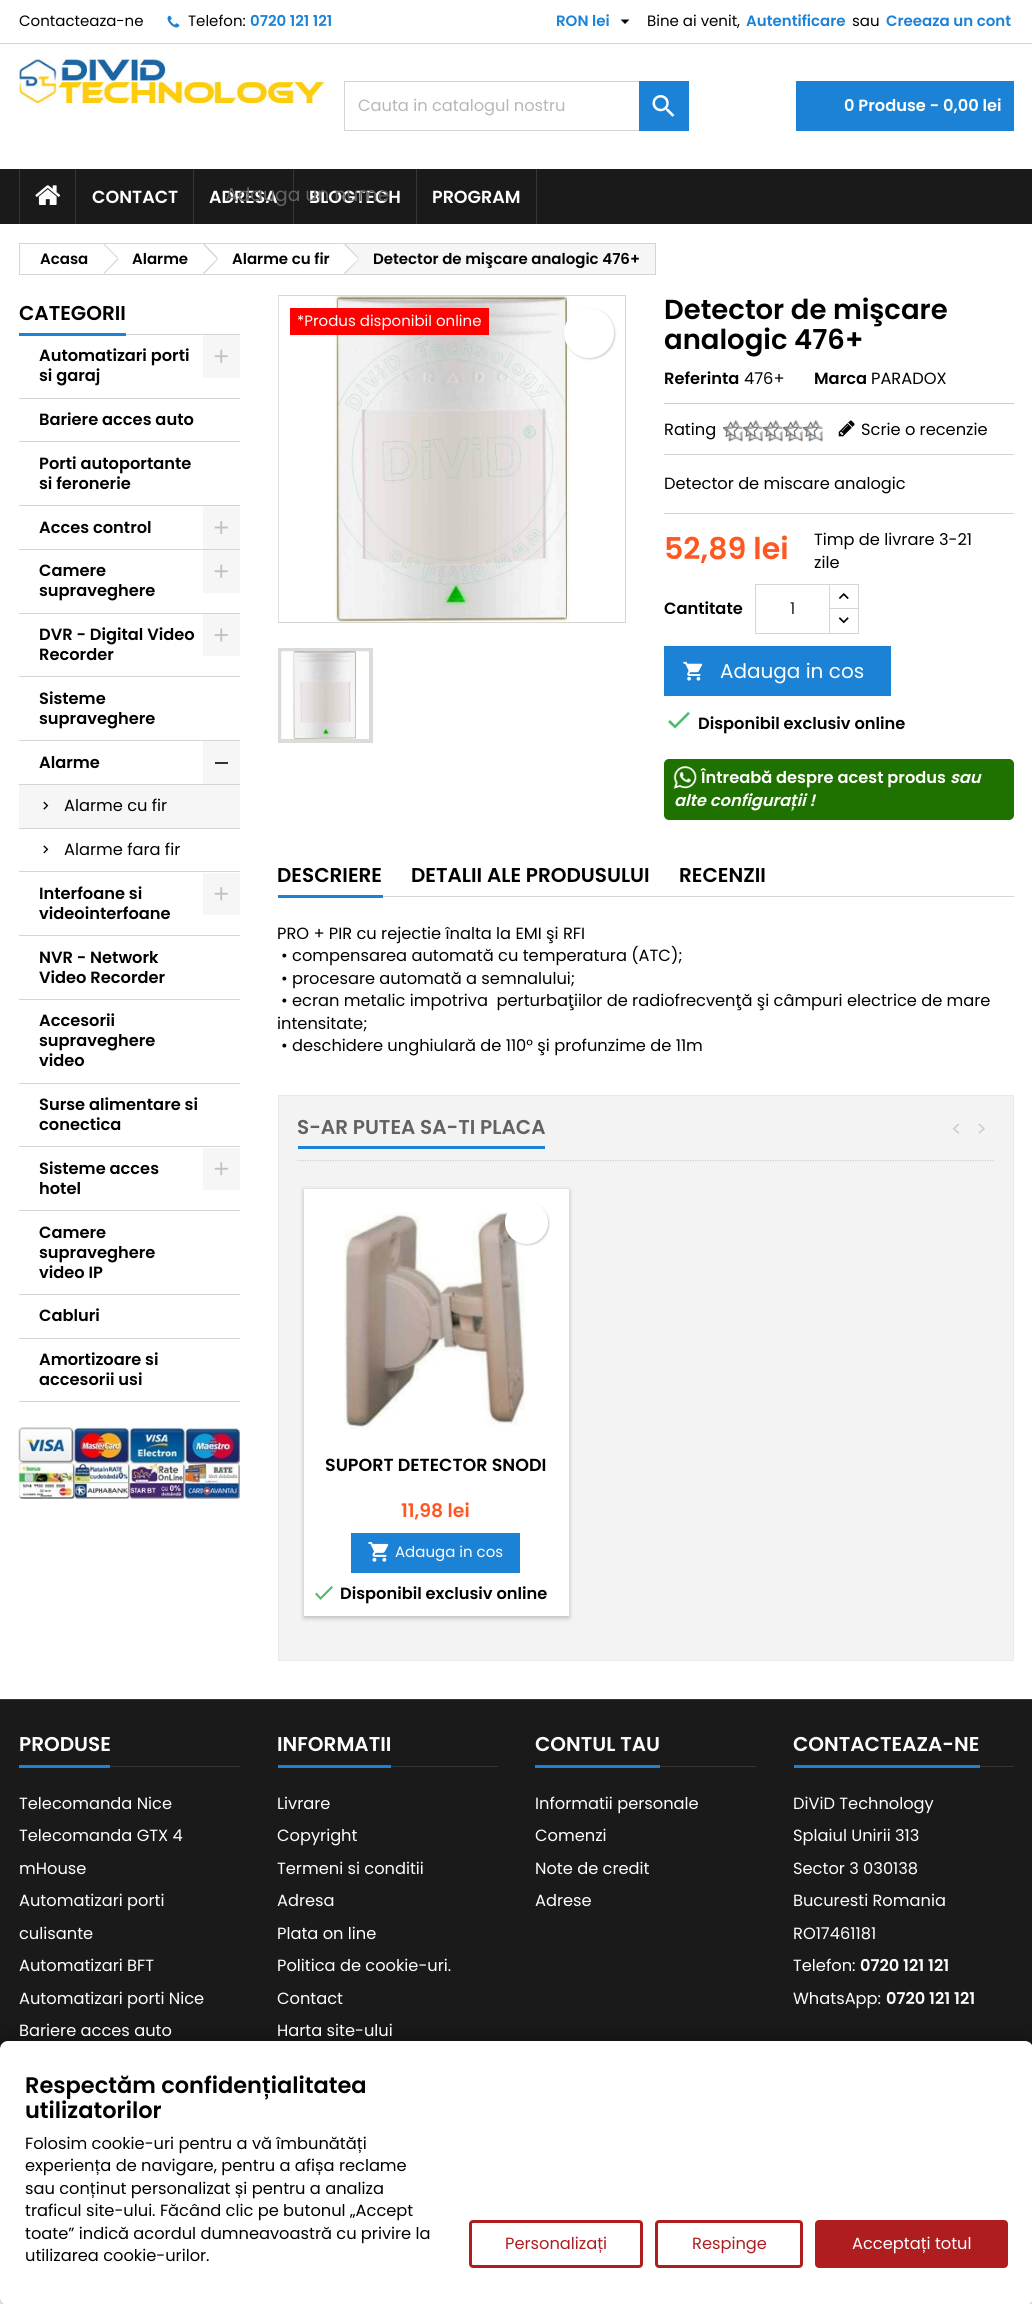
#include <cairo/cairo.h>
#include <math.h>
#include <stddef.h>

static cairo_t *cr;

static void use_color(int r, int g, int b) {
  cairo_set_source_rgb(cr, r / 255.0, g / 255.0, b / 255.0);
}

static void text(double x, double y, const char *s, const char *family, double size, int italic, int bold, int r, int g, int b) {
  cairo_select_font_face(cr, family, italic ? CAIRO_FONT_SLANT_ITALIC : CAIRO_FONT_SLANT_NORMAL,
    bold ? CAIRO_FONT_WEIGHT_BOLD : CAIRO_FONT_WEIGHT_NORMAL);
  cairo_set_font_size(cr, size);
  use_color(r, g, b);
  cairo_move_to(cr, x, y);
  cairo_show_text(cr, s);
}

static void box(double x, double y, double w, double h, int r, int g, int b) {
  use_color(r, g, b);
  cairo_rectangle(cr, x, y, w, h);
  cairo_fill(cr);
}

static void round_rect(double x, double y, double w, double h, double r) {
  cairo_new_sub_path(cr);
  cairo_arc(cr, x + w - r, y + h - r, r, 0, M_PI / 2);
  cairo_arc(cr, x + r, y + h - r, r, M_PI / 2, M_PI);
  cairo_arc(cr, x + r, y + r, r, M_PI, 1.5 * M_PI);
  cairo_arc(cr, x + w - r, y + r, r, 1.5 * M_PI, 2 * M_PI);
  cairo_close_path(cr);
}

static void shadow(double x, double y, double w, double h, double r, double blur, double alpha) {
  cairo_push_group_with_content(cr, CAIRO_CONTENT_ALPHA);
  cairo_set_operator(cr, CAIRO_OPERATOR_SOURCE);
  for (int i = 15; i >= -15 && fmin(w, h) + blur * i / 3 > 0; i -= 2) {
    double e = blur * i / 6;
    cairo_set_source_rgba(cr, 0, 0, 0, alpha * erfc((i - 1) / 8.5) / 2);
    round_rect(x - e, y - e, w + 2 * e, h + 2 * e, fmax(0, fmin(r + e + blur * .6, fmin(w, h) / 2 + e)));
    cairo_fill(cr);
  }
  cairo_pattern_t *soft = cairo_pop_group(cr);
  cairo_mask(cr, soft);
  cairo_pattern_destroy(soft);
}

static void picture(const char *path, double x, double y, double w, double h) {
  cairo_surface_t *image = cairo_image_surface_create_from_png(path);
  cairo_save(cr);
  cairo_set_source_surface(cr, image, x, y);
  cairo_rectangle(cr, x, y, w, h);
  cairo_fill(cr);
  cairo_restore(cr);
  cairo_surface_destroy(image);
}

static void draw(void) {
  use_color(255, 255, 255);
  cairo_paint(cr);
  box(0, 43, 1032, 1, 214, 212, 212);
  picture("img_01.png", 167, 15, 13, 13);
  use_color(0, 0, 0);
  cairo_new_path(cr);
  cairo_move_to(cr, 620.5, 19.5);
  cairo_line_to(cr, 629.5, 19.5);
  cairo_line_to(cr, 625, 24);
  cairo_close_path(cr);
  cairo_fill(cr);
  picture("img_02.png", 18, 58, 307, 46);
  cairo_rectangle(cr, 344.5, 81.5, 344, 49);
  use_color(214, 212, 212);
  cairo_set_line_width(cr, 1);
  cairo_stroke(cr);
  box(639, 81, 50, 50, 27, 130, 214);
  picture("img_03.png", 652, 95, 23, 22);
  box(796, 81, 218, 50, 27, 130, 214);
  box(0, 169, 1032, 55, 27, 26, 27);
  box(19, 169, 1, 55, 54, 54, 54);
  picture("img_04.png", 35, 185, 26, 20);
  box(75, 169, 1, 55, 54, 54, 54);
  box(193, 169, 1, 55, 54, 54, 54);
  box(293, 169, 1, 55, 54, 54, 54);
  box(536, 169, 1, 55, 54, 54, 54);
  box(416, 169, 1, 55, 54, 54, 54);
  box(0, 1700, 1032, 349, 27, 26, 27);
  box(0, 1699, 1032, 1, 54, 54, 54);
  box(110, 1766, 130, 1, 54, 54, 54);
  box(19, 1765, 91, 3, 27, 130, 214);
  box(391, 1766, 107, 1, 54, 54, 54);
  box(278, 1765, 113, 3, 27, 130, 214);
  box(660, 1766, 96, 1, 54, 54, 54);
  box(535, 1765, 125, 3, 27, 130, 214);
  box(980, 1766, 34, 1, 54, 54, 54);
  box(794, 1765, 186, 3, 27, 130, 214);
  cairo_rectangle(cr, 19.5, 243.5, 636, 31);
  use_color(214, 212, 212);
  cairo_stroke(cr);
  use_color(255, 255, 255);
  cairo_new_path(cr);
  cairo_move_to(cr, 105, 244.5);
  cairo_line_to(cr, 117.5, 257);
  cairo_curve_to(cr, 118.5, 258, 118.5, 259.5, 117.5, 260.5);
  cairo_line_to(cr, 105, 273);
  cairo_curve_to(cr, 104, 274, 102.5, 274, 101.5, 273);
  cairo_line_to(cr, 89, 260.5);
  cairo_curve_to(cr, 88, 259.5, 88, 258, 89, 257);
  cairo_line_to(cr, 101.5, 244.5);
  cairo_curve_to(cr, 102.5, 243.5, 104, 243.5, 105, 244.5);
  cairo_close_path(cr);
  cairo_fill(cr);
  use_color(214, 212, 212);
  cairo_new_path(cr);
  cairo_move_to(cr, 104, 243.5);
  cairo_line_to(cr, 118.5, 258);
  cairo_line_to(cr, 117.5, 258.5);
  cairo_line_to(cr, 103.5, 244.5);
  cairo_close_path(cr);
  cairo_fill(cr);
  cairo_new_path(cr);
  cairo_move_to(cr, 117.5, 258.5);
  cairo_line_to(cr, 118.5, 259.5);
  cairo_line_to(cr, 104, 274);
  cairo_line_to(cr, 103.5, 273);
  cairo_close_path(cr);
  cairo_fill(cr);
  use_color(255, 255, 255);
  cairo_new_path(cr);
  cairo_move_to(cr, 205, 244.5);
  cairo_line_to(cr, 217, 257);
  cairo_curve_to(cr, 218, 258, 218, 259.5, 217, 260.5);
  cairo_line_to(cr, 205, 273);
  cairo_curve_to(cr, 204, 274, 202, 274, 201, 273);
  cairo_line_to(cr, 189, 260.5);
  cairo_curve_to(cr, 188, 259.5, 188, 258, 189, 257);
  cairo_line_to(cr, 201, 244.5);
  cairo_curve_to(cr, 202, 243.5, 204, 243.5, 205, 244.5);
  cairo_close_path(cr);
  cairo_fill(cr);
  use_color(214, 212, 212);
  cairo_new_path(cr);
  cairo_move_to(cr, 204, 243.5);
  cairo_line_to(cr, 218, 258);
  cairo_line_to(cr, 217, 259);
  cairo_line_to(cr, 203, 244.5);
  cairo_close_path(cr);
  cairo_move_to(cr, 217, 259);
  cairo_line_to(cr, 218, 259.5);
  cairo_line_to(cr, 204, 274);
  cairo_line_to(cr, 203, 273);
  cairo_close_path(cr);
  cairo_fill(cr);
  box(345, 244, 310, 30, 246, 246, 246);
  use_color(255, 255, 255);
  cairo_new_path(cr);
  cairo_move_to(cr, 346, 244.5);
  cairo_line_to(cr, 358.5, 257);
  cairo_curve_to(cr, 359.5, 258, 359.5, 259.5, 358.5, 260.5);
  cairo_line_to(cr, 346, 273);
  cairo_curve_to(cr, 345, 274, 343.5, 274, 342.5, 273);
  cairo_line_to(cr, 330, 260.5);
  cairo_curve_to(cr, 329, 259.5, 329, 258, 330, 257);
  cairo_line_to(cr, 342.5, 244.5);
  cairo_curve_to(cr, 343.5, 243.5, 345, 243.5, 346, 244.5);
  cairo_close_path(cr);
  cairo_fill(cr);
  use_color(214, 212, 212);
  cairo_new_path(cr);
  cairo_move_to(cr, 345, 243.5);
  cairo_line_to(cr, 359, 258);
  cairo_line_to(cr, 358.5, 259);
  cairo_line_to(cr, 344, 244.5);
  cairo_close_path(cr);
  cairo_move_to(cr, 358.5, 259);
  cairo_line_to(cr, 359, 259.5);
  cairo_line_to(cr, 345, 274);
  cairo_line_to(cr, 344, 273);
  cairo_close_path(cr);
  cairo_fill(cr);
  box(126, 334, 114, 1, 214, 212, 212);
  box(19, 333, 107, 3, 27, 130, 214);
  box(19, 398, 221, 1, 214, 212, 212);
  box(203, 335, 37, 43, 246, 246, 246);
  picture("img_05.png", 214, 349, 14, 14);
  box(19, 441, 221, 1, 214, 212, 212);
  box(19, 505, 221, 1, 214, 212, 212);
  box(19, 549, 221, 1, 214, 212, 212);
  box(203, 506, 37, 43, 246, 246, 246);
  picture("img_06.png", 214, 521, 14, 13);
  box(19, 613, 221, 1, 214, 212, 212);
  box(203, 550, 37, 43, 246, 246, 246);
  picture("img_05.png", 214, 564, 14, 14);
  box(19, 676, 221, 1, 214, 212, 212);
  box(203, 614, 37, 42, 246, 246, 246);
  picture("img_07.png", 214, 628, 14, 14);
  box(19, 740, 221, 1, 214, 212, 212);
  box(19, 784, 221, 1, 214, 212, 212);
  box(203, 741, 37, 43, 246, 246, 246);
  box(215, 762, 13, 2, 51, 51, 51);
  box(19, 785, 221, 43, 246, 246, 246);
  box(19, 828, 221, 1, 214, 212, 212);
  picture("img_08.png", 43, 801, 6, 9);
  box(19, 871, 221, 1, 214, 212, 212);
  picture("img_09.png", 43, 845, 6, 9);
  box(19, 935, 221, 1, 214, 212, 212);
  box(203, 873, 37, 42, 246, 246, 246);
  picture("img_10.png", 214, 887, 14, 14);
  box(19, 999, 221, 1, 214, 212, 212);
  box(19, 1083, 221, 1, 214, 212, 212);
  box(19, 1146, 221, 1, 214, 212, 212);
  box(19, 1210, 221, 1, 214, 212, 212);
  box(203, 1148, 37, 42, 246, 246, 246);
  picture("img_10.png", 214, 1162, 14, 14);
  box(19, 1294, 221, 1, 214, 212, 212);
  box(19, 1338, 221, 1, 214, 212, 212);
  box(19, 1401, 221, 1, 214, 212, 212);
  picture("img_11.png", 18, 1427, 222, 72);
  cairo_rectangle(cr, 278.5, 295.5, 347, 327);
  cairo_stroke(cr);
  picture("img_12.png", 278, 296, 292, 326);
  cairo_rectangle(cr, 280, 650, 91, 91);
  use_color(219, 219, 219);
  cairo_set_line_width(cr, 4);
  cairo_stroke(cr);
  picture("img_13.png", 281, 651, 88, 88);
  box(290, 308, 199, 27, 255, 0, 0);
  use_color(0, 0, 0);
  shadow(565, 309, 50, 50, 25, 1, 0.2);
  use_color(255, 255, 255);
  cairo_arc(cr, 589, 333, 25, 0, 2 * M_PI);
  cairo_fill(cr);
  box(664, 403, 350, 1, 204, 204, 204);
  picture("img_14.png", 723, 419, 20, 23);
  picture("img_15.png", 723, 421, 16, 16);
  picture("img_14.png", 743, 419, 20, 23);
  picture("img_15.png", 743, 421, 16, 16);
  picture("img_14.png", 763, 419, 20, 23);
  picture("img_15.png", 763, 421, 16, 16);
  picture("img_14.png", 783, 419, 20, 23);
  picture("img_15.png", 783, 421, 16, 16);
  picture("img_16.png", 803, 419, 20, 23);
  picture("img_17.png", 803, 421, 16, 16);
  picture("img_18.png", 838, 420, 17, 17);
  box(664, 454, 350, 1, 214, 212, 212);
  box(664, 513, 350, 1, 214, 212, 212);
  cairo_rectangle(cr, 829.5, 584.5, 29, 25);
  cairo_set_line_width(cr, 1);
  cairo_stroke(cr);
  box(830, 609, 28, 1, 255, 255, 255);
  cairo_rectangle(cr, 829.5, 608.5, 29, 25);
  use_color(214, 212, 212);
  cairo_stroke(cr);
  cairo_rectangle(cr, 755.5, 584.5, 74, 49);
  cairo_stroke(cr);
  picture("img_19.png", 838, 593, 11, 6);
  picture("img_20.png", 838, 617, 11, 7);
  box(664, 646, 227, 50, 27, 130, 214);
  picture("img_21.png", 683, 661, 20, 20);
  use_color(76, 187, 108);
  cairo_new_path(cr);
  cairo_move_to(cr, 675, 725);
  cairo_line_to(cr, 688, 712);
  cairo_line_to(cr, 690, 713.5);
  cairo_line_to(cr, 675, 728.5);
  cairo_line_to(cr, 668, 722);
  cairo_line_to(cr, 670, 720);
  cairo_close_path(cr);
  cairo_fill(cr);
  use_color(32, 114, 0);
  round_rect(664, 759, 350, 61, 5);
  cairo_fill(cr);
  picture("img_22.png", 673, 766, 24, 23);
  box(383, 896, 631, 1, 214, 212, 212);
  box(278, 895, 105, 3, 27, 130, 214);
  use_color(243, 243, 243);
  cairo_rectangle(cr, 278.5, 1095.5, 735, 565);
  cairo_fill_preserve(cr);
  use_color(233, 233, 233);
  cairo_stroke(cr);
  cairo_new_path(cr);
  cairo_move_to(cr, 297.5, 1160.5);
  cairo_line_to(cr, 994, 1160.5);
  use_color(207, 207, 207);
  cairo_set_line_width(cr, 1.2);
  cairo_set_dash(cr, (double[]){1.25, 1.25}, 2, 0);
  cairo_stroke(cr);
  box(298, 1146, 247, 3, 27, 130, 214);
  use_color(0, 0, 0);
  shadow(304, 1190, 265, 428, 0, 2.5, 0.24);
  box(304, 1189, 265, 427, 255, 255, 255);
  picture("img_23.png", 344, 1212, 181, 217);
  use_color(0, 0, 0);
  shadow(506, 1203, 43, 42, 21, 1, 0.2);
  use_color(255, 255, 255);
  cairo_arc(cr, 526.5, 1222.5, 21.5, 0, 2 * M_PI);
  cairo_fill(cr);
  box(351, 1533, 169, 40, 27, 130, 214);
  picture("img_24.png", 368, 1542, 21, 20);
  use_color(76, 187, 108);
  cairo_new_path(cr);
  cairo_move_to(cr, 320.5, 1597);
  cairo_line_to(cr, 331.5, 1586);
  cairo_line_to(cr, 333, 1587.5);
  cairo_line_to(cr, 320.5, 1600);
  cairo_line_to(cr, 315, 1594);
  cairo_line_to(cr, 316.5, 1592.5);
  cairo_close_path(cr);
  cairo_fill(cr);
  use_color(0, 0, 0);
  shadow(0, 2041, 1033, 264, 8, 12.5, 0.4);
  use_color(255, 255, 255);
  round_rect(0, 2041, 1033, 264, 8);
  cairo_fill(cr);
  round_rect(470.5, 2221.5, 171, 45, 2.5);
  use_color(175, 29, 31);
  cairo_set_line_width(cr, 3);
  cairo_set_dash(cr, NULL, 0, 0);
  cairo_stroke(cr);
  round_rect(656.5, 2221.5, 145, 45, 2.5);
  cairo_stroke(cr);
  round_rect(816.5, 2221.5, 190, 45, 2.5);
  cairo_fill_preserve(cr);
  cairo_stroke(cr);
  text(19, 26, "Contacteaza-ne", "Poppins", 15, 0, 0, 0, 0, 0);
  text(188, 26, "Telefon:", "Poppins", 15, 0, 0, 0, 0, 0);
  text(250, 26, "0720 121 121", "Poppins SemiBold", 15, 0, 0, 27, 130, 214);
  text(556, 26, "RON lei", "Poppins SemiBold", 15, 0, 0, 27, 130, 214);
  text(647, 26, "Bine ai venit,", "Poppins", 15, 0, 0, 0, 0, 0);
  text(746, 26, "Autentificare", "Poppins SemiBold", 15, 0, 0, 27, 130, 214);
  text(852, 26, "sau", "Poppins", 15, 0, 0, 0, 0, 0);
  text(886, 26, "Creeaza un cont", "Poppins SemiBold", 15, 0, 0, 27, 130, 214);
  text(358, 111, "Cauta in catalogul nostru", "Poppins", 16.25, 0, 0, 183, 183, 183);
  text(844, 111, "0 Produse - 0,00 lei", "Poppins SemiBold", 16.25, 0, 0, 255, 255, 255);
  text(92, 203, "CONTACT", "Poppins SemiBold", 17.5, 0, 0, 255, 255, 255);
  text(209, 203, "ADRESA", "Poppins SemiBold", 17.5, 0, 0, 255, 255, 255);
  text(309, 203, "BLOGTECH", "Poppins SemiBold", 17.5, 0, 0, 255, 255, 255);
  text(432, 203, "PROGRAM", "Poppins SemiBold", 17.5, 0, 0, 255, 255, 255);
  text(225, 201, "Adauga un nume", "Poppins", 18.75, 0, 0, 98, 98, 98);
  text(19, 1751, "PRODUSE", "Poppins SemiBold", 20, 0, 0, 255, 255, 255);
  text(19, 1809, "Telecomanda Nice", "Poppins", 16.25, 0, 0, 255, 255, 255);
  text(19, 1841, "Telecomanda GTX 4", "Poppins", 16.25, 0, 0, 255, 255, 255);
  text(19, 1874, "mHouse", "Poppins", 16.25, 0, 0, 255, 255, 255);
  text(19, 1906, "Automatizari porti", "Poppins", 16.25, 0, 0, 255, 255, 255);
  text(19, 1939, "culisante", "Poppins", 16.25, 0, 0, 255, 255, 255);
  text(19, 1971, "Automatizari BFT", "Poppins", 16.25, 0, 0, 255, 255, 255);
  text(19, 2004, "Automatizari porti Nice", "Poppins", 16.25, 0, 0, 255, 255, 255);
  text(19, 2036, "Bariere acces auto", "Poppins", 16.25, 0, 0, 255, 255, 255);
  text(277, 1751, "INFORMATII", "Poppins SemiBold", 20, 0, 0, 255, 255, 255);
  text(277, 1809, "Livrare", "Poppins", 16.25, 0, 0, 255, 255, 255);
  text(277, 1841, "Copyright", "Poppins", 16.25, 0, 0, 255, 255, 255);
  text(277, 1874, "Termeni si conditii", "Poppins", 16.25, 0, 0, 255, 255, 255);
  text(277, 1906, "Adresa", "Poppins", 16.25, 0, 0, 255, 255, 255);
  text(277, 1939, "Plata on line", "Poppins", 16.25, 0, 0, 255, 255, 255);
  text(277, 1971, "Politica de cookie-uri.", "Poppins", 16.25, 0, 0, 255, 255, 255);
  text(277, 2004, "Contact", "Poppins", 16.25, 0, 0, 255, 255, 255);
  text(277, 2036, "Harta site-ului", "Poppins", 16.25, 0, 0, 255, 255, 255);
  text(535, 1751, "CONTUL TAU", "Poppins SemiBold", 20, 0, 0, 255, 255, 255);
  text(535, 1809, "Informatii personale", "Poppins", 16.25, 0, 0, 255, 255, 255);
  text(535, 1841, "Comenzi", "Poppins", 16.25, 0, 0, 255, 255, 255);
  text(535, 1874, "Note de credit", "Poppins", 16.25, 0, 0, 255, 255, 255);
  text(535, 1906, "Adrese", "Poppins", 16.25, 0, 0, 255, 255, 255);
  text(793, 1751, "CONTACTEAZA-NE", "Poppins SemiBold", 20, 0, 0, 255, 255, 255);
  text(793, 1809, "DiViD Technology", "Poppins", 16.25, 0, 0, 255, 255, 255);
  text(793, 1841, "Splaiul Unirii 313", "Poppins", 16.25, 0, 0, 255, 255, 255);
  text(793, 1874, "Sector 3 030138", "Poppins", 16.25, 0, 0, 255, 255, 255);
  text(793, 1906, "Bucuresti Romania", "Poppins", 16.25, 0, 0, 255, 255, 255);
  text(793, 1939, "RO17461181", "Poppins", 16.25, 0, 0, 255, 255, 255);
  text(793, 1971, "Telefon:", "Poppins", 16.25, 0, 0, 255, 255, 255);
  text(860, 1971, "0720 121 121", "Poppins SemiBold", 16.25, 0, 0, 255, 255, 255);
  text(793, 2004, "WhatsApp:", "Poppins", 16.25, 0, 0, 255, 255, 255);
  text(886, 2004, "0720 121 121", "Poppins SemiBold", 16.25, 0, 0, 255, 255, 255);
  text(40, 264, "Acasa", "Poppins SemiBold", 15, 0, 0, 0, 0, 0);
  text(132, 264, "Alarme", "Poppins SemiBold", 15, 0, 0, 0, 0, 0);
  text(232, 264, "Alarme cu fir", "Poppins SemiBold", 15, 0, 0, 0, 0, 0);
  text(373, 264, "Detector de mişcare analogic 476+", "Poppins SemiBold", 15, 0, 0, 0, 0, 0);
  text(19, 320, "CATEGORII", "Poppins SemiBold", 20, 0, 0, 0, 0, 0);
  text(39, 361, "Automatizari porti", "Poppins SemiBold", 16.25, 0, 0, 0, 0, 0);
  text(39, 381, "si garaj", "Poppins SemiBold", 16.25, 0, 0, 0, 0, 0);
  text(39, 425, "Bariere acces auto", "Poppins SemiBold", 16.25, 0, 0, 0, 0, 0);
  text(39, 469, "Porti autoportante", "Poppins SemiBold", 16.25, 0, 0, 0, 0, 0);
  text(39, 489, "si feronerie", "Poppins SemiBold", 16.25, 0, 0, 0, 0, 0);
  text(39, 533, "Acces control", "Poppins SemiBold", 16.25, 0, 0, 0, 0, 0);
  text(39, 576, "Camere", "Poppins SemiBold", 16.25, 0, 0, 0, 0, 0);
  text(39, 596, "supraveghere", "Poppins SemiBold", 16.25, 0, 0, 0, 0, 0);
  text(39, 640, "DVR - Digital Video", "Poppins SemiBold", 16.25, 0, 0, 0, 0, 0);
  text(39, 660, "Recorder", "Poppins SemiBold", 16.25, 0, 0, 0, 0, 0);
  text(39, 704, "Sisteme", "Poppins SemiBold", 16.25, 0, 0, 0, 0, 0);
  text(39, 724, "supraveghere", "Poppins SemiBold", 16.25, 0, 0, 0, 0, 0);
  text(39, 768, "Alarme", "Poppins SemiBold", 16.25, 0, 0, 0, 0, 0);
  text(64, 811, "Alarme cu fir", "Poppins", 16.25, 0, 0, 0, 0, 0);
  text(64, 855, "Alarme fara fir", "Poppins", 16.25, 0, 0, 0, 0, 0);
  text(39, 899, "Interfoane si", "Poppins SemiBold", 16.25, 0, 0, 0, 0, 0);
  text(39, 919, "videointerfoane", "Poppins SemiBold", 16.25, 0, 0, 0, 0, 0);
  text(39, 963, "NVR - Network", "Poppins SemiBold", 16.25, 0, 0, 0, 0, 0);
  text(39, 983, "Video Recorder", "Poppins SemiBold", 16.25, 0, 0, 0, 0, 0);
  text(39, 1026, "Accesorii", "Poppins SemiBold", 16.25, 0, 0, 0, 0, 0);
  text(39, 1046, "supraveghere", "Poppins SemiBold", 16.25, 0, 0, 0, 0, 0);
  text(39, 1066, "video", "Poppins SemiBold", 16.25, 0, 0, 0, 0, 0);
  text(39, 1110, "Surse alimentare si", "Poppins SemiBold", 16.25, 0, 0, 0, 0, 0);
  text(39, 1130, "conectica", "Poppins SemiBold", 16.25, 0, 0, 0, 0, 0);
  text(39, 1174, "Sisteme acces", "Poppins SemiBold", 16.25, 0, 0, 0, 0, 0);
  text(39, 1194, "hotel", "Poppins SemiBold", 16.25, 0, 0, 0, 0, 0);
  text(39, 1238, "Camere", "Poppins SemiBold", 16.25, 0, 0, 0, 0, 0);
  text(39, 1258, "supraveghere", "Poppins SemiBold", 16.25, 0, 0, 0, 0, 0);
  text(39, 1278, "video IP", "Poppins SemiBold", 16.25, 0, 0, 0, 0, 0);
  text(39, 1321, "Cabluri", "Poppins SemiBold", 16.25, 0, 0, 0, 0, 0);
  text(39, 1365, "Amortizoare si", "Poppins SemiBold", 16.25, 0, 0, 0, 0, 0);
  text(39, 1385, "accesorii usi", "Poppins SemiBold", 16.25, 0, 0, 0, 0, 0);
  text(297, 326, "*Produs disponibil online", "Poppins", 15, 0, 0, 255, 255, 255);
  text(664, 319, "Detector de mişcare", "Poppins SemiBold", 27.5, 0, 0, 0, 0, 0);
  text(664, 349, "analogic 476+", "Poppins SemiBold", 27.5, 0, 0, 0, 0, 0);
  text(664, 384, "Referinta", "Poppins SemiBold", 16.25, 0, 0, 0, 0, 0);
  text(744, 384, "476+", "Poppins", 16.25, 0, 0, 0, 0, 0);
  text(814, 384, "Marca", "Poppins SemiBold", 16.25, 0, 0, 0, 0, 0);
  text(871, 384, "PARADOX", "Poppins", 16.25, 0, 0, 0, 0, 0);
  text(664, 435, "Rating", "Poppins", 16.25, 0, 0, 0, 0, 0);
  text(861, 435, "Scrie o recenzie", "Poppins", 16.25, 0, 0, 0, 0, 0);
  text(664, 489, "Detector de miscare analogic", "Poppins", 16.25, 0, 0, 0, 0, 0);
  text(664, 559, "52,89 lei", "Poppins SemiBold", 30, 0, 0, 255, 87, 34);
  text(814, 545, "Timp de livrare 3-21", "Poppins", 16.25, 0, 0, 0, 0, 0);
  text(814, 568, "zile", "Poppins", 16.25, 0, 0, 0, 0, 0);
  text(664, 614, "Cantitate", "Poppins SemiBold", 16.25, 0, 0, 0, 0, 0);
  text(790, 614, "1", "Poppins", 16.25, 0, 0, 35, 35, 35);
  text(720, 678, "Adauga in cos", "Poppins", 20, 0, 0, 255, 255, 255);
  text(698, 729, "Disponibil exclusiv online", "Poppins SemiBold", 16.25, 0, 0, 0, 0, 0);
  text(701, 783, "Întreabă despre acest produs", "Poppins SemiBold", 16.25, 0, 0, 255, 255, 255);
  text(950, 783, "sau", "Poppins SemiBold", 16.25, 1, 0, 255, 255, 255);
  text(674, 806, "alte configurații !", "Poppins SemiBold", 16.25, 1, 0, 255, 255, 255);
  text(277, 882, "DESCRIERE", "Poppins SemiBold", 20, 0, 0, 0, 0, 0);
  text(411, 882, "DETALII ALE PRODUSULUI", "Poppins SemiBold", 20, 0, 0, 0, 0, 0);
  text(679, 882, "RECENZII", "Poppins SemiBold", 20, 0, 0, 0, 0, 0);
  text(277, 939, "PRO + PIR cu rejectie înalta la EMI şi RFI", "Poppins", 16.25, 0, 0, 0, 0, 0);
  text(281, 961, "• compensarea automată cu temperatura (ATC);", "Poppins", 16.25, 0, 0, 0, 0, 0);
  text(281, 984, "• procesare automată a semnalului;", "Poppins", 16.25, 0, 0, 0, 0, 0);
  text(281, 1006, "• ecran metalic impotriva  perturbaţiilor de radiofrecvenţă şi câmpuri electrice de mare", "Poppins", 16.25, 0, 0, 0, 0, 0);
  text(277, 1029, "intensitate;", "Poppins", 16.25, 0, 0, 0, 0, 0);
  text(281, 1051, "• deschidere unghiulară de 110° şi profunzime de 11m", "Poppins", 16.25, 0, 0, 0, 0, 0);
  text(297, 1134, "S-AR PUTEA SA-TI PLACA", "Poppins SemiBold", 20, 0, 0, 98, 98, 98);
  text(951, 1136, "<", "Poppins", 20, 0, 0, 204, 204, 204);
  text(976, 1136, ">", "Poppins", 20, 0, 0, 204, 204, 204);
  text(325, 1471, "SUPORT DETECTOR SNODI", "Poppins SemiBold", 17.5, 0, 0, 0, 0, 0);
  text(401, 1517, "11,98 lei", "Poppins SemiBold", 18.75, 0, 0, 255, 87, 34);
  text(395, 1557, "Adauga in cos", "Poppins", 15, 0, 0, 255, 255, 255);
  text(340, 1599, "Disponibil exclusiv online", "Poppins SemiBold", 16.25, 0, 0, 0, 0, 0);
  text(25, 2093, "Respectăm confidențialitatea", "Poppins SemiBold", 22.5, 0, 0, 0, 0, 0);
  text(25, 2118, "utilizatorilor", "Poppins SemiBold", 22.5, 0, 0, 0, 0, 0);
  text(25, 2149, "Folosim cookie-uri pentru a vă îmbunătăți", "Poppins", 16.25, 0, 0, 0, 0, 0);
  text(25, 2171, "experiența de navigare, pentru a afișa reclame", "Poppins", 16.25, 0, 0, 0, 0, 0);
  text(25, 2194, "sau conținut personalizat și pentru a analiza", "Poppins", 16.25, 0, 0, 0, 0, 0);
  text(25, 2216, "traficul site-ului. Făcând clic pe butonul „Accept", "Poppins", 16.25, 0, 0, 0, 0, 0);
  text(25, 2239, "toate” indică acordul dumneavoastră cu privire la", "Poppins", 16.25, 0, 0, 0, 0, 0);
  text(25, 2261, "utilizarea cookie-urilor.", "Poppins", 16.25, 0, 0, 0, 0, 0);
  text(505, 2249, "Personalizați", "Poppins", 16.25, 0, 0, 175, 29, 31);
  text(692, 2249, "Respinge", "Poppins", 16.25, 0, 0, 175, 29, 31);
  text(852, 2249, "Acceptați totul", "Poppins", 16.25, 0, 0, 255, 255, 255);
}

int main(void) {
  cairo_surface_t *surface = cairo_image_surface_create(CAIRO_FORMAT_RGB24, 1032, 2304);
  cr = cairo_create(surface);
  cairo_font_options_t *options = cairo_font_options_create();
  cairo_font_options_set_hint_metrics(options, CAIRO_HINT_METRICS_OFF);
  cairo_font_options_set_hint_style(options, CAIRO_HINT_STYLE_NONE);
  cairo_set_font_options(cr, options);
  cairo_set_miter_limit(cr, 4);
  draw();
  cairo_surface_write_to_png(surface, "out.png");
  cairo_font_options_destroy(options);
  cairo_destroy(cr);
  cairo_surface_destroy(surface);
  return 0;
}
